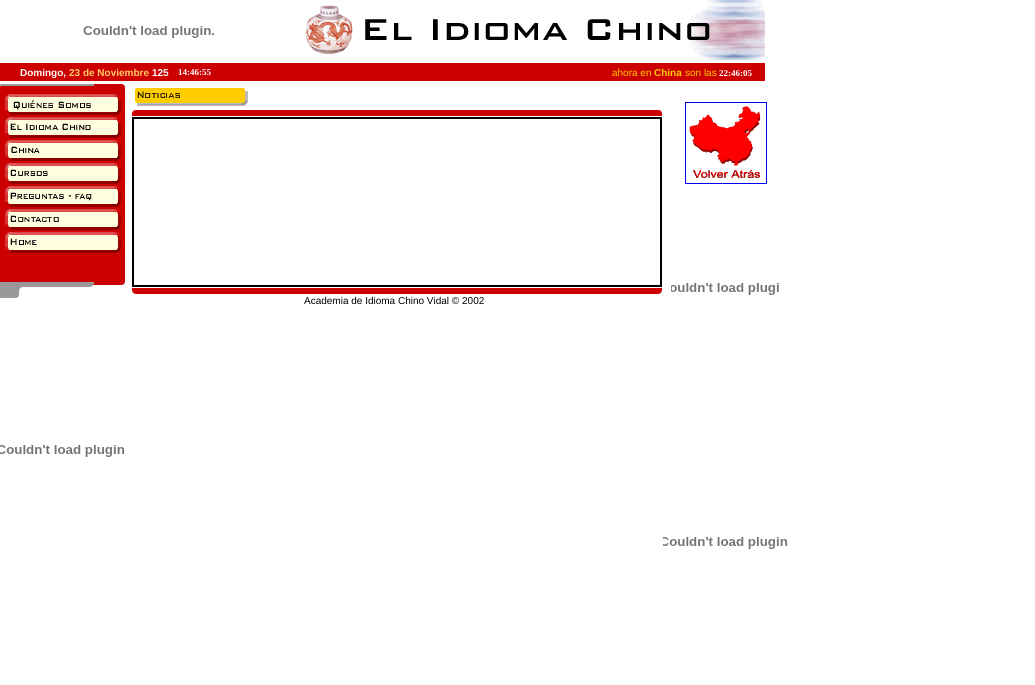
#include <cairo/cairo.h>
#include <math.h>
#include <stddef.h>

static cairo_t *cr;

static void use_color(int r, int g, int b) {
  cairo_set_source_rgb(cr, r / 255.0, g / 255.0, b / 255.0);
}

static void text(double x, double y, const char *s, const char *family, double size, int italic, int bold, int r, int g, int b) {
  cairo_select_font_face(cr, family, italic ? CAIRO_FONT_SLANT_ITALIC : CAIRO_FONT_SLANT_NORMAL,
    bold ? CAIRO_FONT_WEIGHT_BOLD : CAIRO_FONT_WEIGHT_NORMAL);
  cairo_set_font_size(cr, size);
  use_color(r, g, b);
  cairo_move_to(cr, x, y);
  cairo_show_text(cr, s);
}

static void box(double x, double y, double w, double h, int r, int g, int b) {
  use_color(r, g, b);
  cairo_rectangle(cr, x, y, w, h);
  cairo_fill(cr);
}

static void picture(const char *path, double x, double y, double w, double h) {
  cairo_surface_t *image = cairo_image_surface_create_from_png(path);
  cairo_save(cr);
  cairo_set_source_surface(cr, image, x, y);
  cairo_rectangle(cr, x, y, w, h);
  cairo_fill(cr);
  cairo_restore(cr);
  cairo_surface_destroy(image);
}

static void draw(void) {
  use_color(255, 255, 255);
  cairo_paint(cr);
  picture("img_01.png", 83, 26, 131, 12);
  picture("img_02.png", 306, 0, 459, 60);
  box(0, 63, 765, 18, 204, 0, 0);
  picture("img_03.png", 0, 84, 125, 8);
  box(0, 92, 125, 187, 204, 0, 0);
  picture("img_04.png", 5, 94, 116, 21);
  picture("img_05.png", 5, 117, 116, 21);
  picture("img_06.png", 5, 140, 116, 21);
  picture("img_07.png", 5, 163, 116, 21);
  picture("img_08.png", 5, 186, 116, 21);
  picture("img_09.png", 5, 209, 116, 21);
  picture("img_10.png", 5, 232, 116, 21);
  picture("img_11.png", 0, 279, 125, 19);
  picture("img_12.png", 0, 445, 125, 12);
  cairo_rectangle(cr, 685.5, 102.5, 81, 81);
  use_color(0, 0, 238);
  cairo_set_line_width(cr, 1);
  cairo_stroke(cr);
  picture("img_13.png", 689, 106, 72, 72);
  picture("img_14.png", 671, 283, 108, 12);
  picture("img_15.png", 135, 88, 113, 18);
  picture("img_16.png", 132, 110, 530, 6);
  cairo_rectangle(cr, 132.5, 117.5, 529, 169);
  use_color(0, 0, 0);
  cairo_stroke(cr);
  cairo_rectangle(cr, 133.5, 118.5, 527, 167);
  cairo_stroke(cr);
  picture("img_17.png", 132, 288, 530, 6);
  picture("img_12.png", 663, 537, 125, 12);
  text(20, 76, "Domingo,", "Liberation Sans", 10, 0, 1, 255, 255, 255);
  text(69, 76, "23 de Noviembre", "Liberation Sans", 10, 0, 1, 255, 204, 102);
  text(152, 76, "125", "Liberation Sans", 10, 0, 1, 255, 255, 255);
  text(178, 75, "14:46:55", "Liberation Serif", 9, 0, 1, 255, 255, 255);
  text(612, 76, "ahora en", "Liberation Sans", 10, 0, 0, 255, 204, 0);
  text(654, 76, "China", "Liberation Sans", 10, 0, 1, 255, 204, 0);
  text(685, 76, "son las", "Liberation Sans", 10, 0, 0, 255, 204, 0);
  text(719, 76, "22:46:05", "Liberation Serif", 9, 0, 1, 255, 255, 255);
  text(304, 304, "Academia de Idioma Chino Vidal © 2002", "Liberation Sans", 10, 0, 0, 0, 0, 0);
}

int main(void) {
  cairo_surface_t *surface = cairo_image_surface_create(CAIRO_FORMAT_RGB24, 1035, 685);
  cr = cairo_create(surface);
  cairo_font_options_t *options = cairo_font_options_create();
  cairo_font_options_set_hint_metrics(options, CAIRO_HINT_METRICS_OFF);
  cairo_font_options_set_hint_style(options, CAIRO_HINT_STYLE_NONE);
  cairo_set_font_options(cr, options);
  cairo_set_miter_limit(cr, 4);
  draw();
  cairo_surface_write_to_png(surface, "out.png");
  cairo_font_options_destroy(options);
  cairo_destroy(cr);
  cairo_surface_destroy(surface);
  return 0;
}
